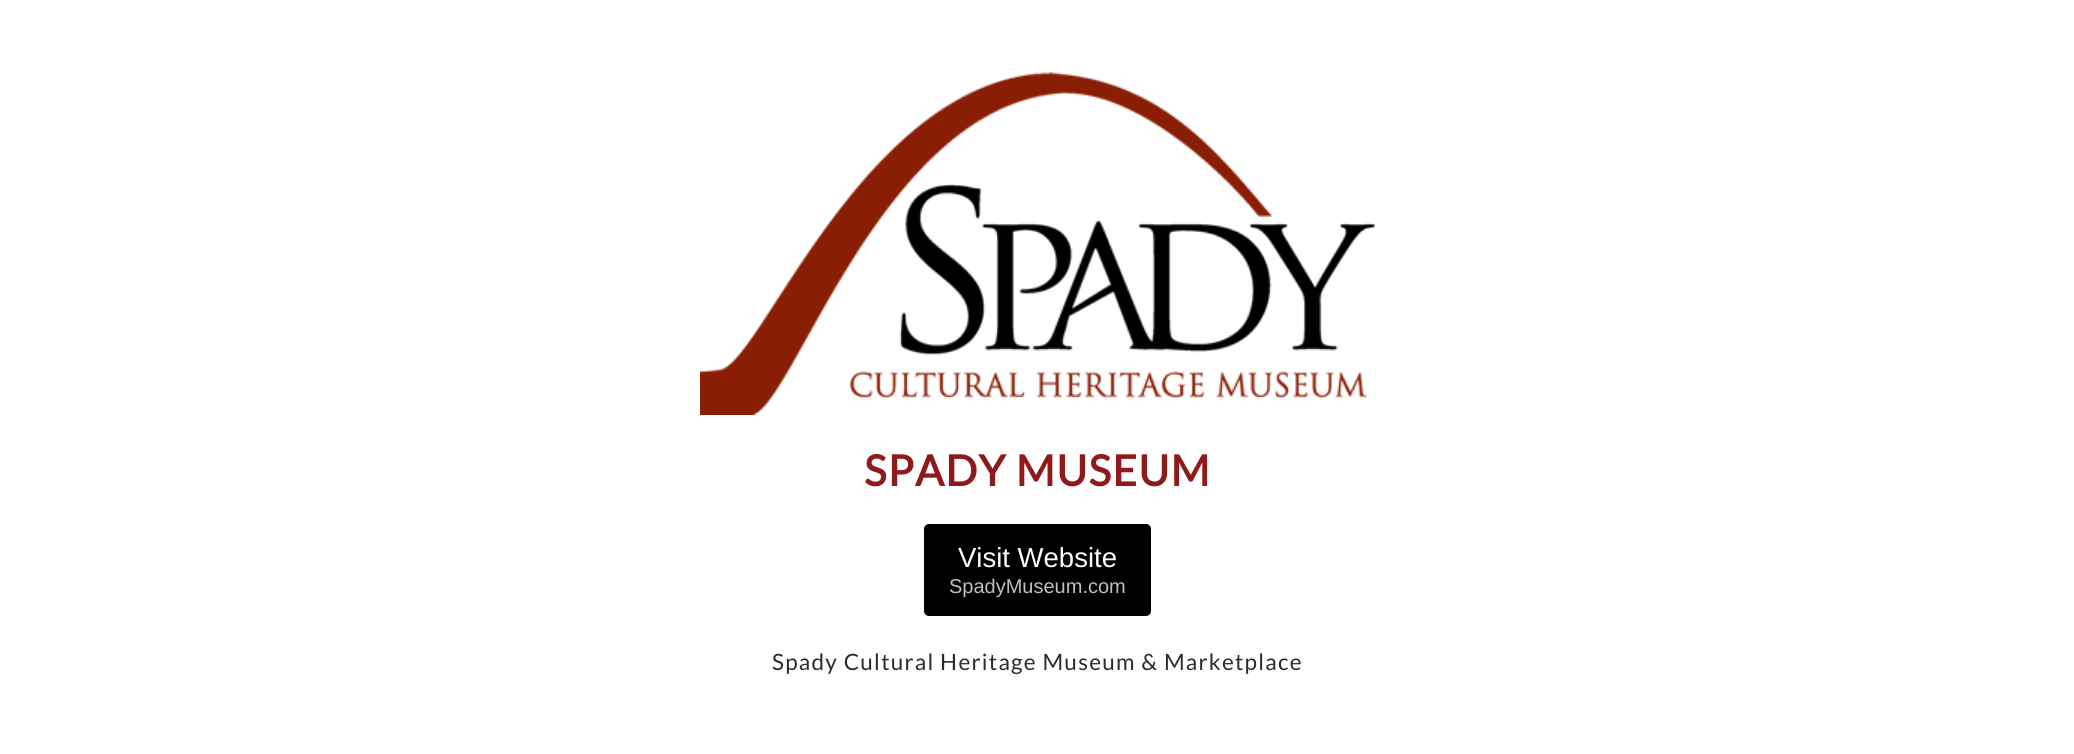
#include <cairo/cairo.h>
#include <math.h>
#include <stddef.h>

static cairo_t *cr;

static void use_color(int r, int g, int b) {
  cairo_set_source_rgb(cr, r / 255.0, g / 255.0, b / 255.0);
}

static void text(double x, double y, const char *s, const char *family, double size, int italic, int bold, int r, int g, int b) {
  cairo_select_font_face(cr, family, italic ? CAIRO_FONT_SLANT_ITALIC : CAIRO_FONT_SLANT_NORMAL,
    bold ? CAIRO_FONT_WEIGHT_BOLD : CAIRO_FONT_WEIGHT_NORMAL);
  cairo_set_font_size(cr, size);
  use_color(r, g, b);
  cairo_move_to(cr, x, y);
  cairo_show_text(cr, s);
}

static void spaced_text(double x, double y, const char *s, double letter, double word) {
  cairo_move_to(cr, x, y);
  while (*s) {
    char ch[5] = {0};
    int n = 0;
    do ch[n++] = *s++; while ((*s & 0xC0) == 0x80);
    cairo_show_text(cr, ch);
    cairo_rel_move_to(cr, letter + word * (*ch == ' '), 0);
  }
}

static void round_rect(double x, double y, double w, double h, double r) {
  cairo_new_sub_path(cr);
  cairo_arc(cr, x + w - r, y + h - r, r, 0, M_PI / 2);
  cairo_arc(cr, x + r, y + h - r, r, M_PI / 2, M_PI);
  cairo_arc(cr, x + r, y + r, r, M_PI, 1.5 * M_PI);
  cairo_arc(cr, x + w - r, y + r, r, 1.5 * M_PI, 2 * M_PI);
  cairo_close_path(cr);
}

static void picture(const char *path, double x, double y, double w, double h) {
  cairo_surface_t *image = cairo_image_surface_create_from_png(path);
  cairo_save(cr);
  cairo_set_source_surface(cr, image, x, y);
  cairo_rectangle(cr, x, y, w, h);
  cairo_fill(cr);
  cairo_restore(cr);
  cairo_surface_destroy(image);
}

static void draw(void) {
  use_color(255, 255, 255);
  cairo_paint(cr);
  picture("img_01.png", 700, 72, 675, 343);
  use_color(0, 0, 0);
  round_rect(924, 524, 227, 92, 5);
  cairo_fill(cr);
  cairo_select_font_face(cr, "Lato", CAIRO_FONT_SLANT_NORMAL, CAIRO_FONT_WEIGHT_BOLD);
  cairo_set_font_size(cr, 42.5);
  use_color(144, 25, 28);
  spaced_text(864, 486, "SPADY MUSEUM", 1.25, 0);
  text(958, 567, "Visit Website", "Liberation Sans", 27.5, 0, 0, 255, 255, 255);
  text(949, 593, "SpadyMuseum.com", "Liberation Sans", 20, 0, 0, 191, 191, 191);
  cairo_select_font_face(cr, "Lato", CAIRO_FONT_SLANT_NORMAL, CAIRO_FONT_WEIGHT_NORMAL);
  cairo_set_font_size(cr, 22.5);
  use_color(42, 44, 42);
  spaced_text(772, 670, "Spady Cultural Heritage Museum & Marketplace", 1.25, 0);
}

int main(void) {
  cairo_surface_t *surface = cairo_image_surface_create(CAIRO_FORMAT_RGB24, 2074, 754);
  cr = cairo_create(surface);
  cairo_font_options_t *options = cairo_font_options_create();
  cairo_font_options_set_hint_metrics(options, CAIRO_HINT_METRICS_OFF);
  cairo_font_options_set_hint_style(options, CAIRO_HINT_STYLE_NONE);
  cairo_set_font_options(cr, options);
  cairo_set_miter_limit(cr, 4);
  draw();
  cairo_surface_write_to_png(surface, "out.png");
  cairo_font_options_destroy(options);
  cairo_destroy(cr);
  cairo_surface_destroy(surface);
  return 0;
}
